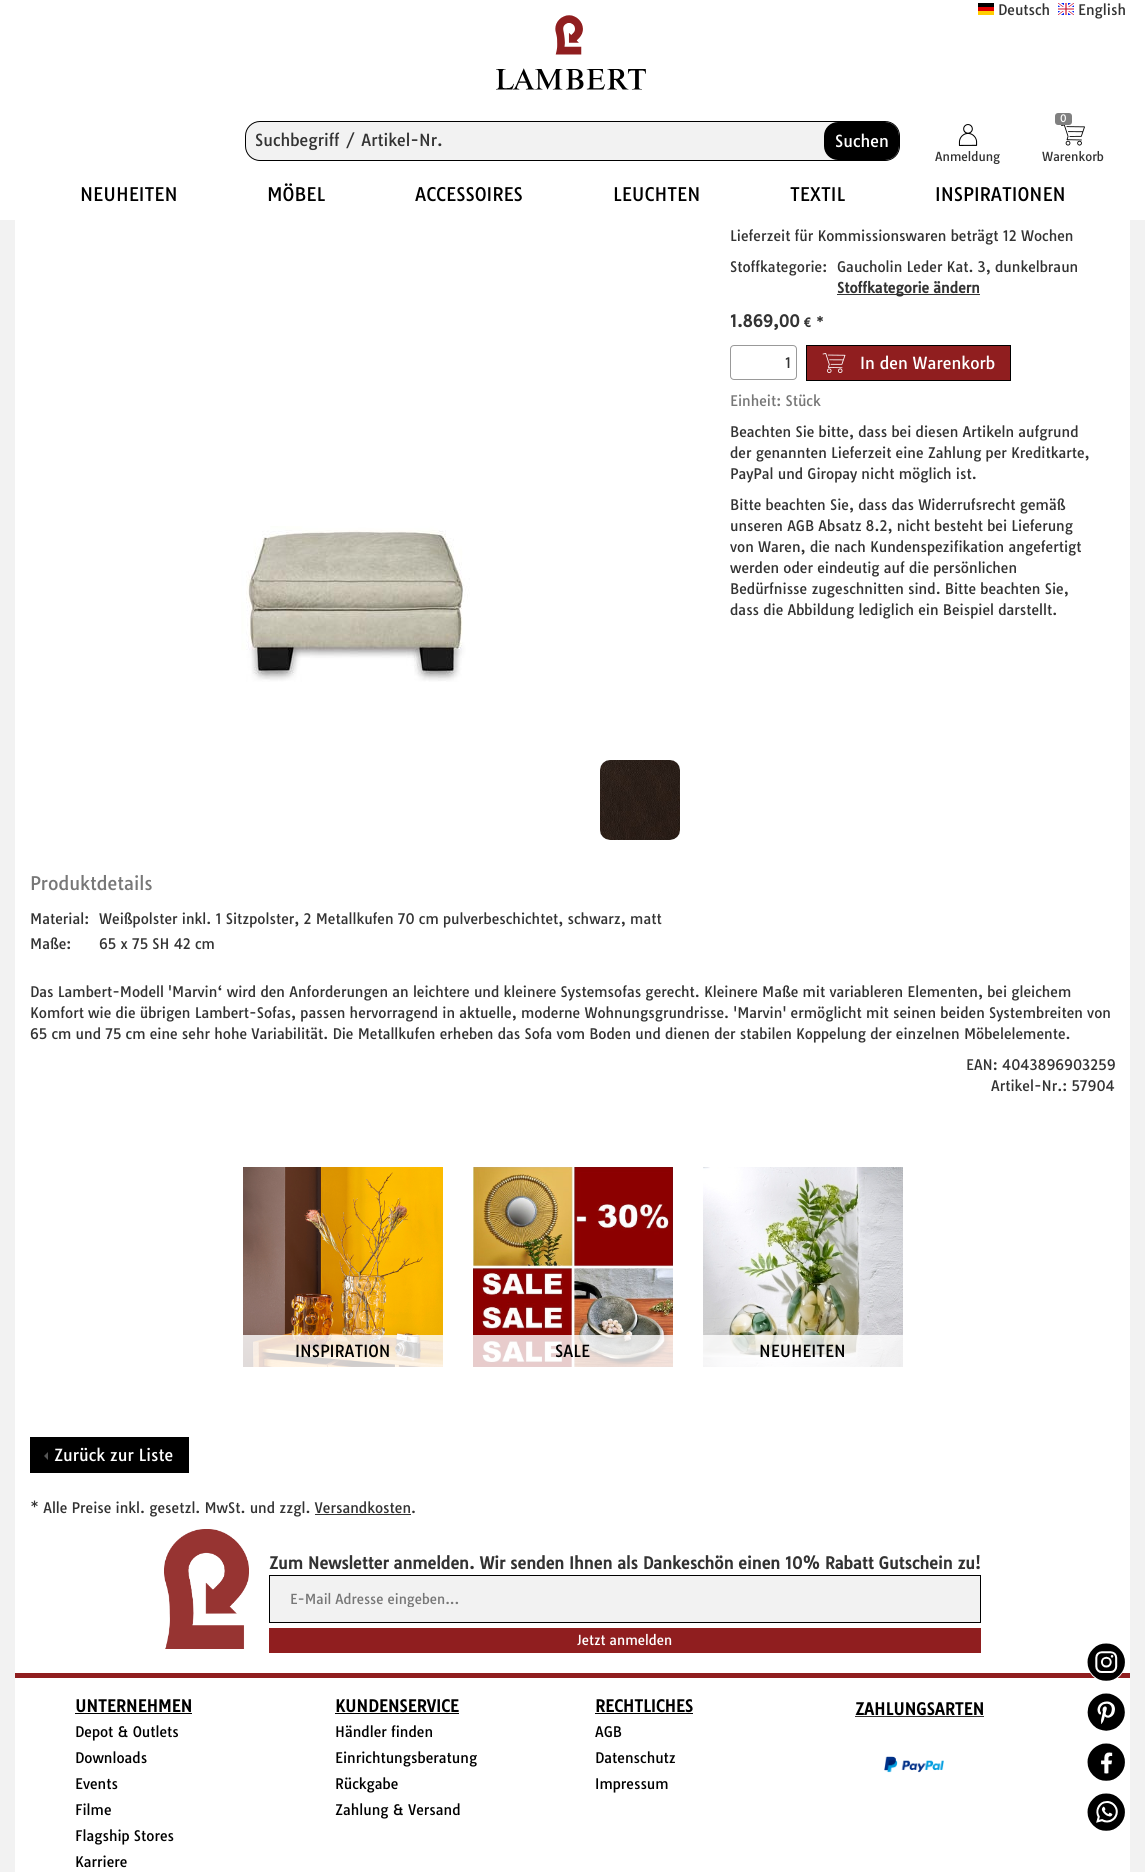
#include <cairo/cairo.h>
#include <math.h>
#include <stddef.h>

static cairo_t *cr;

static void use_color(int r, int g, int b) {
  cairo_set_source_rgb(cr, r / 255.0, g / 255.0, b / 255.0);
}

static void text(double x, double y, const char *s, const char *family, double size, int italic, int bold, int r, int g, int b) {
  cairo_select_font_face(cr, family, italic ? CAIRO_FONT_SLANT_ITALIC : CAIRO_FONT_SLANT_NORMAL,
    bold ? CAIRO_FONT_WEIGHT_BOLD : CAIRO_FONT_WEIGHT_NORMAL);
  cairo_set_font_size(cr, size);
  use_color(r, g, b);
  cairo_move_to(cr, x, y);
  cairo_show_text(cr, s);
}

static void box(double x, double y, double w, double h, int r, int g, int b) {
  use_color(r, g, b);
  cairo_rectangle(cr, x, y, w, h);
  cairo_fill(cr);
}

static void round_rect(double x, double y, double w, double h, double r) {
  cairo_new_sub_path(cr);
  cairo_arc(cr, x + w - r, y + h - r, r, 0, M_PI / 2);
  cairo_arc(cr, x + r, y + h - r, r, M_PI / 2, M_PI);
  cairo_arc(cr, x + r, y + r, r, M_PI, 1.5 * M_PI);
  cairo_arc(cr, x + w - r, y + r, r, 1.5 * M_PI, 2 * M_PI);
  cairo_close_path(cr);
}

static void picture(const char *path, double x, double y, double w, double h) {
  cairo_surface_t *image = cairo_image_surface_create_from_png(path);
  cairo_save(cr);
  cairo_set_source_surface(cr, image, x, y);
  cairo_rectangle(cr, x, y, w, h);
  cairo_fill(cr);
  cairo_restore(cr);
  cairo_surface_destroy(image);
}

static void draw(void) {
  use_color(242, 242, 242);
  cairo_paint(cr);
  box(15, 220, 1115, 1652, 255, 255, 255);
  box(0, 0, 1145, 220, 255, 255, 255);
  picture("img_01.png", 978, 3, 16, 12);
  picture("img_02.png", 1058, 3, 16, 12);
  picture("img_03.png", 496, 15, 150, 75);
  use_color(242, 242, 242);
  round_rect(245.5, 121.5, 654, 39, 14.5);
  cairo_fill_preserve(cr);
  use_color(0, 0, 0);
  cairo_set_line_width(cr, 1);
  cairo_stroke(cr);
  round_rect(824, 122, 75, 38, 14);
  cairo_fill(cr);
  picture("img_04.png", 958, 124, 20, 22);
  use_color(128, 128, 128);
  round_rect(1055, 113, 17, 12, 3);
  cairo_fill(cr);
  picture("img_05.png", 1061, 125, 24, 21);
  box(837, 294, 143, 1, 51, 51, 51);
  round_rect(730.5, 345.5, 66, 34, 3.5);
  use_color(153, 153, 153);
  cairo_stroke(cr);
  use_color(144, 30, 31);
  cairo_rectangle(cr, 806.5, 345.5, 204, 35);
  cairo_fill_preserve(cr);
  use_color(0, 0, 0);
  cairo_stroke(cr);
  picture("img_06.png", 822, 353, 24, 20);
  picture("img_07.png", 241, 526, 229, 156);
  picture("img_08.png", 600, 760, 80, 80);
  picture("img_09.png", 243, 1167, 200, 200);
  cairo_set_source_rgba(cr, 1, 1, 1, 0.8);
  cairo_rectangle(cr, 243, 1335, 200, 32);
  cairo_fill(cr);
  picture("img_10.png", 473, 1167, 200, 200);
  cairo_rectangle(cr, 473, 1335, 200, 32);
  cairo_fill(cr);
  picture("img_11.png", 703, 1167, 200, 200);
  cairo_rectangle(cr, 703, 1335, 200, 32);
  cairo_fill(cr);
  box(30, 1437, 159, 36, 0, 0, 0);
  use_color(85, 85, 85);
  cairo_new_path(cr);
  cairo_move_to(cr, 48, 1452);
  cairo_line_to(cr, 48, 1460);
  cairo_line_to(cr, 44, 1456);
  cairo_close_path(cr);
  cairo_fill(cr);
  box(315, 1514, 96, 1, 51, 51, 51);
  picture("img_12.png", 164, 1529, 85, 120);
  use_color(242, 242, 242);
  cairo_rectangle(cr, 269.5, 1575.5, 711, 47);
  cairo_fill_preserve(cr);
  use_color(0, 0, 0);
  cairo_stroke(cr);
  box(269, 1628, 712, 25, 144, 30, 31);
  box(15, 1673, 1115, 5, 144, 30, 31);
  box(75, 1713, 117, 1, 0, 0, 0);
  box(335, 1713, 124, 1, 0, 0, 0);
  box(595, 1713, 98, 1, 0, 0, 0);
  box(855, 1716, 129, 1, 51, 51, 51);
  picture("img_13.png", 884, 1756, 60, 17);
  picture("img_14.png", 1087, 1643, 38, 38);
  picture("img_15.png", 1087, 1693, 38, 38);
  picture("img_16.png", 1087, 1743, 38, 38);
  picture("img_17.png", 1087, 1793, 38, 38);
  text(998, 15, "Deutsch", "Tauri", 14, 0, 0, 51, 51, 51);
  text(1078, 15, "English", "Tauri", 14, 0, 0, 51, 51, 51);
  text(255, 146, "Suchbegriff / Artikel-Nr.", "Tauri", 16, 0, 0, 51, 51, 51);
  text(835, 147, "Suchen", "Tauri", 16, 0, 0, 255, 255, 255);
  text(935, 161, "Anmeldung", "Tauri", 12, 0, 0, 51, 51, 51);
  text(1060, 122, "0", "Tauri", 10, 0, 0, 255, 255, 255);
  text(1042, 161, "Warenkorb", "Tauri", 12, 0, 0, 51, 51, 51);
  text(80, 201, "NEUHEITEN", "Tauri", 18, 0, 0, 0, 0, 0);
  text(267, 201, "MÖBEL", "Tauri", 18, 0, 0, 0, 0, 0);
  text(415, 201, "ACCESSOIRES", "Tauri", 18, 0, 0, 0, 0, 0);
  text(613, 201, "LEUCHTEN", "Tauri", 18, 0, 0, 0, 0, 0);
  text(790, 201, "TEXTIL", "Tauri", 18, 0, 0, 0, 0, 0);
  text(935, 201, "INSPIRATIONEN", "Tauri", 18, 0, 0, 0, 0, 0);
  text(730, 241, "Lieferzeit für Kommissionswaren beträgt 12 Wochen", "Tauri", 14, 0, 0, 51, 51, 51);
  text(730, 272, "Stoffkategorie:", "Tauri", 14, 0, 0, 51, 51, 51);
  text(837, 272, "Gaucholin Leder Kat. 3, dunkelbraun", "Tauri", 14, 0, 0, 51, 51, 51);
  text(837, 293, "Stoffkategorie ändern", "Tauri", 14, 0, 1, 51, 51, 51);
  text(730, 327, "1.869,00", "Tauri", 16, 0, 1, 51, 51, 51);
  text(804, 327, "€", "Tauri", 12, 0, 1, 51, 51, 51);
  text(816, 327, "*", "Tauri", 12, 0, 1, 51, 51, 51);
  text(785, 368, "1", "Tauri", 14, 0, 0, 51, 51, 51);
  text(860, 369, "In den Warenkorb", "Tauri", 16, 0, 0, 255, 255, 255);
  text(730, 406, "Einheit: Stück", "Tauri", 14, 0, 0, 119, 119, 119);
  text(730, 437, "Beachten Sie bitte, dass bei diesen Artikeln aufgrund", "Tauri", 14, 0, 0, 51, 51, 51);
  text(730, 458, "der genannten Lieferzeit eine Zahlung per Kreditkarte,", "Tauri", 14, 0, 0, 51, 51, 51);
  text(730, 479, "PayPal und Giropay nicht möglich ist.", "Tauri", 14, 0, 0, 51, 51, 51);
  text(730, 510, "Bitte beachten Sie, dass das Widerrufsrecht gemäß", "Tauri", 14, 0, 0, 51, 51, 51);
  text(730, 531, "unseren AGB Absatz 8.2, nicht besteht bei Lieferung", "Tauri", 14, 0, 0, 51, 51, 51);
  text(730, 552, "von Waren, die nach Kundenspezifikation angefertigt", "Tauri", 14, 0, 0, 51, 51, 51);
  text(730, 573, "werden oder eindeutig auf die persönlichen", "Tauri", 14, 0, 0, 51, 51, 51);
  text(730, 594, "Bedürfnisse zugeschnitten sind. Bitte beachten Sie,", "Tauri", 14, 0, 0, 51, 51, 51);
  text(730, 615, "dass die Abbildung lediglich ein Beispiel darstellt.", "Tauri", 14, 0, 0, 51, 51, 51);
  text(30, 890, "Produktdetails", "Tauri", 18, 0, 0, 119, 119, 119);
  text(30, 924, "Material:", "Tauri", 14, 0, 0, 51, 51, 51);
  text(99, 924, "Weißpolster inkl. 1 Sitzpolster, 2 Metallkufen 70 cm pulverbeschichtet, schwarz, matt", "Tauri", 14, 0, 0, 51, 51, 51);
  text(30, 949, "Maße:", "Tauri", 14, 0, 0, 51, 51, 51);
  text(99, 949, "65 x 75 SH 42 cm", "Tauri", 14, 0, 0, 51, 51, 51);
  text(30, 997, "Das Lambert-Modell 'Marvin‘ wird den Anforderungen an leichtere und kleinere Systemsofas gerecht. Kleinere Maße mit variableren Elementen, bei gleichem", "Tauri", 14, 0, 0, 51, 51, 51);
  text(30, 1018, "Komfort wie die übrigen Lambert-Sofas, passen hervorragend in aktuelle, moderne Wohnungsgrundrisse. 'Marvin' ermöglicht mit seinen beiden Systembreiten von", "Tauri", 14, 0, 0, 51, 51, 51);
  text(30, 1039, "65 cm und 75 cm eine sehr hohe Variabilität. Die Metallkufen erheben das Sofa vom Boden und dienen der stabilen Koppelung der einzelnen Möbelelemente.", "Tauri", 14, 0, 0, 51, 51, 51);
  text(966, 1070, "EAN: 4043896903259", "Tauri", 14, 0, 0, 51, 51, 51);
  text(991, 1091, "Artikel-Nr.: 57904", "Tauri", 14, 0, 0, 51, 51, 51);
  text(295, 1357, "INSPIRATION", "Tauri", 16, 0, 0, 0, 0, 0);
  text(555, 1357, "SALE", "Tauri", 16, 0, 0, 0, 0, 0);
  text(759, 1357, "NEUHEITEN", "Tauri", 16, 0, 0, 0, 0, 0);
  text(54, 1461, "Zurück zur Liste", "Tauri", 16, 0, 0, 255, 255, 255);
  text(30, 1513, "* Alle Preise inkl. gesetzl. MwSt. und zzgl. Versandkosten.", "Tauri", 14, 0, 0, 51, 51, 51);
  text(269, 1569, "Zum Newsletter anmelden. Wir senden Ihnen als Dankeschön einen 10% Rabatt Gutschein zu!", "Tauri", 16, 0, 1, 51, 51, 51);
  cairo_save(cr);
  cairo_rectangle(cr, 290, 1591, 670, 16);
  cairo_clip(cr);
  text(290, 1604, "E-Mail Adresse eingeben...", "Tauri", 13.3, 0, 0, 119, 119, 119);
  cairo_restore(cr);
  text(577, 1645, "Jetzt anmelden", "Tauri", 13.3, 0, 0, 255, 255, 255);
  text(75, 1712, "UNTERNEHMEN", "Tauri", 16, 0, 1, 0, 0, 0);
  text(75, 1737, "Depot & Outlets", "Tauri", 14, 0, 0, 0, 0, 0);
  text(75, 1763, "Downloads", "Tauri", 14, 0, 0, 0, 0, 0);
  text(75, 1789, "Events", "Tauri", 14, 0, 0, 0, 0, 0);
  text(75, 1815, "Filme", "Tauri", 14, 0, 0, 0, 0, 0);
  text(75, 1841, "Flagship Stores", "Tauri", 14, 0, 0, 0, 0, 0);
  text(75, 1867, "Karriere", "Tauri", 14, 0, 0, 0, 0, 0);
  text(335, 1712, "KUNDENSERVICE", "Tauri", 16, 0, 1, 0, 0, 0);
  text(335, 1737, "Händler finden", "Tauri", 14, 0, 0, 0, 0, 0);
  text(335, 1763, "Einrichtungsberatung", "Tauri", 14, 0, 0, 0, 0, 0);
  text(335, 1789, "Rückgabe", "Tauri", 14, 0, 0, 0, 0, 0);
  text(335, 1815, "Zahlung & Versand", "Tauri", 14, 0, 0, 0, 0, 0);
  text(595, 1712, "RECHTLICHES", "Tauri", 16, 0, 1, 0, 0, 0);
  text(595, 1737, "AGB", "Tauri", 14, 0, 0, 0, 0, 0);
  text(595, 1763, "Datenschutz", "Tauri", 14, 0, 0, 0, 0, 0);
  text(595, 1789, "Impressum", "Tauri", 14, 0, 0, 0, 0, 0);
  text(855, 1715, "ZAHLUNGSARTEN", "Tauri", 16, 0, 1, 0, 0, 0);
}

int main(void) {
  cairo_surface_t *surface = cairo_image_surface_create(CAIRO_FORMAT_RGB24, 1145, 1872);
  cr = cairo_create(surface);
  cairo_font_options_t *options = cairo_font_options_create();
  cairo_font_options_set_hint_metrics(options, CAIRO_HINT_METRICS_OFF);
  cairo_font_options_set_hint_style(options, CAIRO_HINT_STYLE_NONE);
  cairo_set_font_options(cr, options);
  cairo_set_miter_limit(cr, 4);
  draw();
  cairo_surface_write_to_png(surface, "out.png");
  cairo_font_options_destroy(options);
  cairo_destroy(cr);
  cairo_surface_destroy(surface);
  return 0;
}
